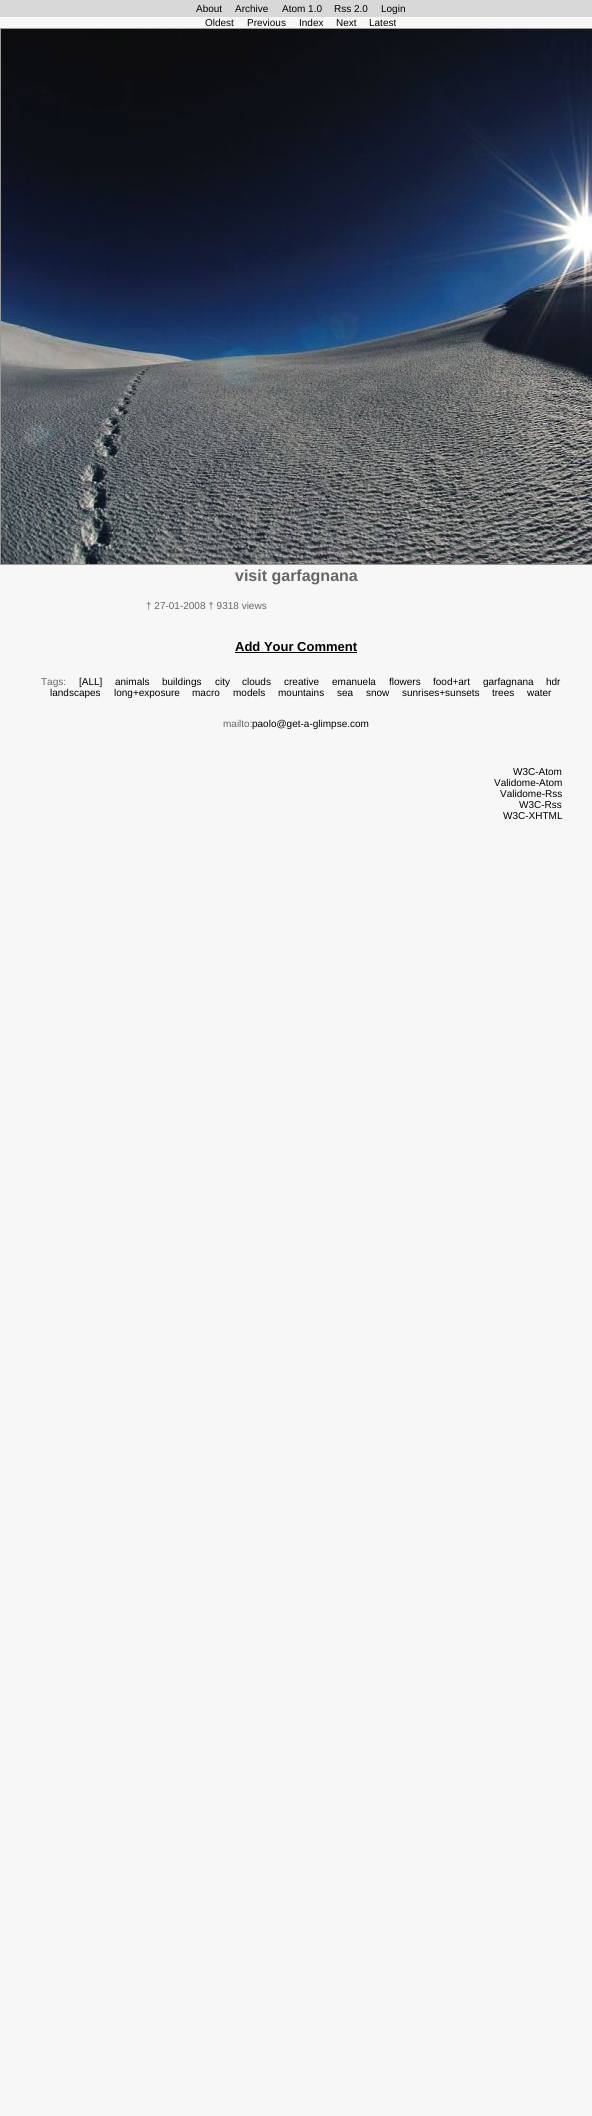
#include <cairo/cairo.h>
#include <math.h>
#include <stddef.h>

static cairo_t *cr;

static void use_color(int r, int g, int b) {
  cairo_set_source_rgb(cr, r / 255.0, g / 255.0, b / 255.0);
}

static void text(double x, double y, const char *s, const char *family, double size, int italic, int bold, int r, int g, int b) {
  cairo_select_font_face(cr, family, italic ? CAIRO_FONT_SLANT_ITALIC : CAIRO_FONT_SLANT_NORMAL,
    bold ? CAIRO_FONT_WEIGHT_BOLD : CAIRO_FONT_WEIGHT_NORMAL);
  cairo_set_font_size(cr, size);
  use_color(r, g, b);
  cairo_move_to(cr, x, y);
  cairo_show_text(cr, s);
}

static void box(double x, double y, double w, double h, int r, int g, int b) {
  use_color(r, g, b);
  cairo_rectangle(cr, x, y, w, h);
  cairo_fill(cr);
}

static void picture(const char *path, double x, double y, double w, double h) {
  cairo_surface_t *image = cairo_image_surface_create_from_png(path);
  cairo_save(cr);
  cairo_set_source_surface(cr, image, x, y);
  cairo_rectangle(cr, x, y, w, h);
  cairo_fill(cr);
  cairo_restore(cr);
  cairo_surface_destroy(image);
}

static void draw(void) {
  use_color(247, 247, 247);
  cairo_paint(cr);
  box(0, 0, 592, 17, 216, 216, 216);
  cairo_rectangle(cr, 0.5, 28.5, 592, 536);
  use_color(153, 153, 153);
  cairo_set_line_width(cr, 1);
  cairo_stroke(cr);
  picture("img_01.png", 1, 29, 591, 535);
  box(235, 652, 122, 1, 0, 0, 0);
  text(196, 12, "About", "Liberation Sans", 10, 0, 0, 0, 0, 0);
  text(235, 12, "Archive", "Liberation Sans", 10, 0, 0, 0, 0, 0);
  text(282, 12, "Atom 1.0", "Liberation Sans", 10, 0, 0, 0, 0, 0);
  text(334, 12, "Rss 2.0", "Liberation Sans", 10, 0, 0, 0, 0, 0);
  text(381, 12, "Login", "Liberation Sans", 10, 0, 0, 0, 0, 0);
  text(205, 26, "Oldest", "Liberation Sans", 10, 0, 0, 0, 0, 0);
  text(247, 26, "Previous", "Liberation Sans", 10, 0, 0, 0, 0, 0);
  text(299, 26, "Index", "Liberation Sans", 10, 0, 0, 0, 0, 0);
  text(336, 26, "Next", "Liberation Sans", 10, 0, 0, 0, 0, 0);
  text(369, 26, "Latest", "Liberation Sans", 10, 0, 0, 0, 0, 0);
  text(235, 581, "visit garfagnana", "Liberation Sans", 16, 0, 1, 102, 102, 102);
  text(146, 609, "† 27-01-2008 † 9318 views", "Liberation Sans", 10, 0, 0, 102, 102, 102);
  text(235, 651, "Add Your Comment", "Liberation Sans", 13, 0, 1, 0, 0, 0);
  text(41, 685, "Tags:", "Liberation Sans", 10, 0, 0, 102, 102, 102);
  text(79, 685, "[ALL]", "Liberation Sans", 10, 0, 0, 0, 0, 0);
  text(115, 685, "animals", "Liberation Sans", 10, 0, 0, 0, 0, 0);
  text(162, 685, "buildings", "Liberation Sans", 10, 0, 0, 0, 0, 0);
  text(215, 685, "city", "Liberation Sans", 10, 0, 0, 0, 0, 0);
  text(242, 685, "clouds", "Liberation Sans", 10, 0, 0, 0, 0, 0);
  text(284, 685, "creative", "Liberation Sans", 10, 0, 0, 0, 0, 0);
  text(332, 685, "emanuela", "Liberation Sans", 10, 0, 0, 0, 0, 0);
  text(389, 685, "flowers", "Liberation Sans", 10, 0, 0, 0, 0, 0);
  text(433, 685, "food+art", "Liberation Sans", 10, 0, 0, 0, 0, 0);
  text(483, 685, "garfagnana", "Liberation Sans", 10, 0, 0, 0, 0, 0);
  text(546, 685, "hdr", "Liberation Sans", 10, 0, 0, 0, 0, 0);
  text(50, 696, "landscapes", "Liberation Sans", 10, 0, 0, 0, 0, 0);
  text(114, 696, "long+exposure", "Liberation Sans", 10, 0, 0, 0, 0, 0);
  text(192, 696, "macro", "Liberation Sans", 10, 0, 0, 0, 0, 0);
  text(233, 696, "models", "Liberation Sans", 10, 0, 0, 0, 0, 0);
  text(278, 696, "mountains", "Liberation Sans", 10, 0, 0, 0, 0, 0);
  text(337, 696, "sea", "Liberation Sans", 10, 0, 0, 0, 0, 0);
  text(366, 696, "snow", "Liberation Sans", 10, 0, 0, 0, 0, 0);
  text(402, 696, "sunrises+sunsets", "Liberation Sans", 10, 0, 0, 0, 0, 0);
  text(492, 696, "trees", "Liberation Sans", 10, 0, 0, 0, 0, 0);
  text(527, 696, "water", "Liberation Sans", 10, 0, 0, 0, 0, 0);
  text(223, 727, "mailto:", "Liberation Sans", 10, 0, 0, 102, 102, 102);
  text(252, 727, "paolo@get-a-glimpse.com", "Liberation Sans", 10, 0, 0, 0, 0, 0);
  text(513, 775, "W3C-Atom", "Liberation Sans", 10, 0, 0, 0, 0, 0);
  text(494, 786, "Validome-Atom", "Liberation Sans", 10, 0, 0, 0, 0, 0);
  text(500, 797, "Validome-Rss", "Liberation Sans", 10, 0, 0, 0, 0, 0);
  text(519, 808, "W3C-Rss", "Liberation Sans", 10, 0, 0, 0, 0, 0);
  text(503, 819, "W3C-XHTML", "Liberation Sans", 10, 0, 0, 0, 0, 0);
}

int main(void) {
  cairo_surface_t *surface = cairo_image_surface_create(CAIRO_FORMAT_RGB24, 592, 2116);
  cr = cairo_create(surface);
  cairo_font_options_t *options = cairo_font_options_create();
  cairo_font_options_set_hint_metrics(options, CAIRO_HINT_METRICS_OFF);
  cairo_font_options_set_hint_style(options, CAIRO_HINT_STYLE_NONE);
  cairo_set_font_options(cr, options);
  cairo_set_miter_limit(cr, 4);
  draw();
  cairo_surface_write_to_png(surface, "out.png");
  cairo_font_options_destroy(options);
  cairo_destroy(cr);
  cairo_surface_destroy(surface);
  return 0;
}
